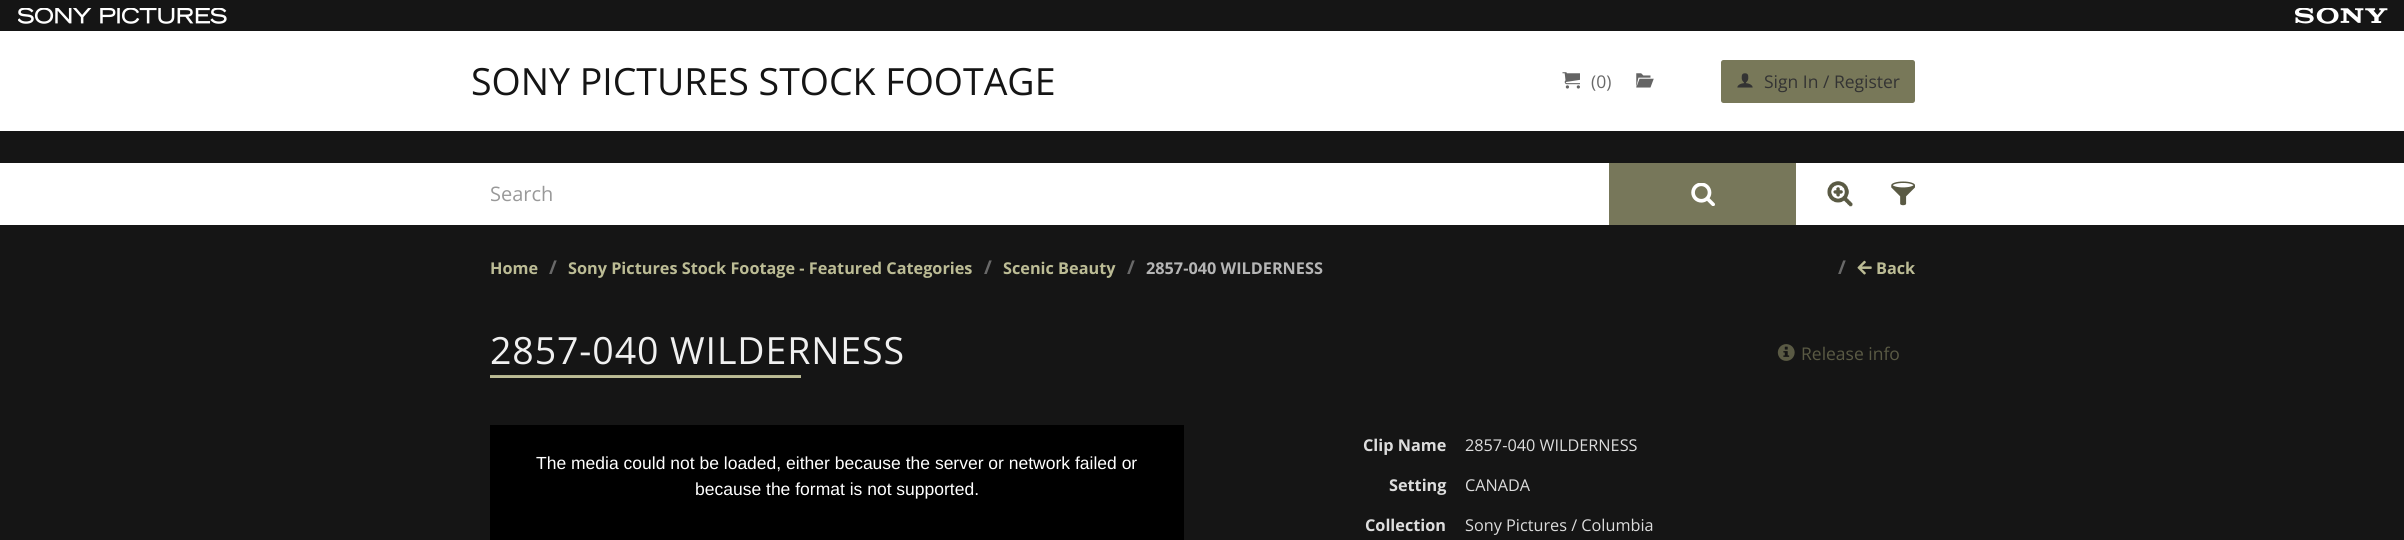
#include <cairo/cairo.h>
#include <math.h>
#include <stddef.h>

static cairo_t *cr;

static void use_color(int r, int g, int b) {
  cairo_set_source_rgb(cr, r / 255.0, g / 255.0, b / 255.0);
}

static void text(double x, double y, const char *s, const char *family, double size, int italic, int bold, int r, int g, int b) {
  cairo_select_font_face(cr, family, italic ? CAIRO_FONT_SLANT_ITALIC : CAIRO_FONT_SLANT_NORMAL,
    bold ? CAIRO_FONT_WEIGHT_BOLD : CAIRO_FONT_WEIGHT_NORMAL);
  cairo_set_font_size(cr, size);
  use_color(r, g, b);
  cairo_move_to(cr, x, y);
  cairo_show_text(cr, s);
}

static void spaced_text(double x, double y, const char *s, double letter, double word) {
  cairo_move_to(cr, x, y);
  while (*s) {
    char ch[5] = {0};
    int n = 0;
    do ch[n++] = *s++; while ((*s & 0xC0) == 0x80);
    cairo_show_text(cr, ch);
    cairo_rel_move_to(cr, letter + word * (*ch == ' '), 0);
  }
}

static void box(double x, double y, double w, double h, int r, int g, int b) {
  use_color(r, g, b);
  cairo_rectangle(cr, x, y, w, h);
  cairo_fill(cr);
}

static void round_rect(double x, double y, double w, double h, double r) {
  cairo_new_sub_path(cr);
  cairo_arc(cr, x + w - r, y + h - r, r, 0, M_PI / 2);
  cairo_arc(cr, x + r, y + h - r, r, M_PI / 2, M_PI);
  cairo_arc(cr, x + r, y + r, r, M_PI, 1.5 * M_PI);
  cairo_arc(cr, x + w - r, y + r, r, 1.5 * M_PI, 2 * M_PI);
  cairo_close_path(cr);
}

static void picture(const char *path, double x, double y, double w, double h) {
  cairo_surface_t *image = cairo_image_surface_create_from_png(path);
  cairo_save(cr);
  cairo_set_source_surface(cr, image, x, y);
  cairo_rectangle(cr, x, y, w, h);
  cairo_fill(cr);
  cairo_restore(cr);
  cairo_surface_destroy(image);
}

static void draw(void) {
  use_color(21, 21, 21);
  cairo_paint(cr);
  box(0, 31, 2404, 100, 255, 255, 255);
  picture("img_01.png", 18, 8, 209, 16);
  picture("img_02.png", 2295, 8, 93, 16);
  picture("img_03.png", 1562, 72, 18, 17);
  picture("img_04.png", 1636, 73, 18, 15);
  use_color(120, 120, 89);
  round_rect(1721, 60, 194, 43, 2.5);
  cairo_fill(cr);
  picture("img_05.png", 1737, 73, 16, 15);
  box(0, 163, 2404, 62, 255, 255, 255);
  box(1609, 163, 187, 62, 119, 119, 90);
  picture("img_06.png", 1691, 183, 24, 23);
  picture("img_07.png", 1827, 181, 26, 26);
  picture("img_08.png", 1891, 181, 24, 25);
  picture("img_09.png", 1857, 260, 15, 15);
  box(490, 376, 311, 2, 188, 188, 149);
  box(490, 375, 311, 1, 179, 179, 142);
  picture("img_10.png", 1777, 344, 18, 17);
  box(490, 425, 694, 115, 0, 0, 0);
  text(471, 95, "SONY PICTURES STOCK FOOTAGE", "Open Sans", 37.5, 0, 0, 21, 21, 21);
  text(1591, 88, "(0)", "Open Sans", 17.5, 0, 0, 105, 105, 105);
  text(1764, 88, "Sign In / Register", "Open Sans", 17.5, 0, 0, 51, 51, 51);
  text(490, 201, "Search", "Open Sans", 20, 0, 0, 153, 153, 153);
  text(490, 274, "Home", "Open Sans", 16.25, 0, 1, 188, 188, 149);
  text(549, 274, "/", "Open Sans", 19, 0, 1, 105, 105, 105);
  text(568, 274, "Sony Pictures Stock Footage - Featured Categories", "Open Sans", 16.25, 0, 1, 188, 188, 149);
  text(984, 274, "/", "Open Sans", 19, 0, 1, 105, 105, 105);
  text(1003, 274, "Scenic Beauty", "Open Sans", 16.25, 0, 1, 188, 188, 149);
  text(1127, 274, "/", "Open Sans", 19, 0, 1, 105, 105, 105);
  text(1146, 274, "2857-040 WILDERNESS", "Open Sans", 16.25, 0, 1, 181, 181, 181);
  text(1838, 274, "/", "Open Sans", 19, 0, 1, 105, 105, 105);
  text(1876, 274, "Back", "Open Sans", 16.25, 0, 1, 188, 188, 149);
  cairo_select_font_face(cr, "Open Sans", CAIRO_FONT_SLANT_NORMAL, CAIRO_FONT_WEIGHT_NORMAL);
  cairo_set_font_size(cr, 37.5);
  use_color(240, 240, 240);
  spaced_text(490, 364, "2857-040 WILDERNESS", 0.9, 0);
  text(1801, 360, "Release info", "Open Sans", 17.5, 0, 0, 90, 90, 68);
  text(536, 469, "The media could not be loaded, either because the server or network failed or", "Liberation Sans", 17.5, 0, 0, 255, 255, 255);
  text(695, 495, "because the format is not supported.", "Liberation Sans", 17.5, 0, 0, 255, 255, 255);
  text(1363, 451, "Clip Name", "Open Sans", 16.25, 0, 1, 221, 221, 221);
  text(1465, 451, "2857-040 WILDERNESS", "Open Sans", 16.25, 0, 0, 221, 221, 221);
  text(1389, 491, "Setting", "Open Sans", 16.25, 0, 1, 221, 221, 221);
  text(1465, 491, "CANADA", "Open Sans", 16.25, 0, 0, 221, 221, 221);
  text(1365, 531, "Collection", "Open Sans", 16.25, 0, 1, 221, 221, 221);
  text(1465, 531, "Sony Pictures / Columbia", "Open Sans", 16.25, 0, 0, 221, 221, 221);
}

int main(void) {
  cairo_surface_t *surface = cairo_image_surface_create(CAIRO_FORMAT_RGB24, 2404, 540);
  cr = cairo_create(surface);
  cairo_font_options_t *options = cairo_font_options_create();
  cairo_font_options_set_hint_metrics(options, CAIRO_HINT_METRICS_OFF);
  cairo_font_options_set_hint_style(options, CAIRO_HINT_STYLE_NONE);
  cairo_set_font_options(cr, options);
  cairo_set_miter_limit(cr, 4);
  draw();
  cairo_surface_write_to_png(surface, "out.png");
  cairo_font_options_destroy(options);
  cairo_destroy(cr);
  cairo_surface_destroy(surface);
  return 0;
}
